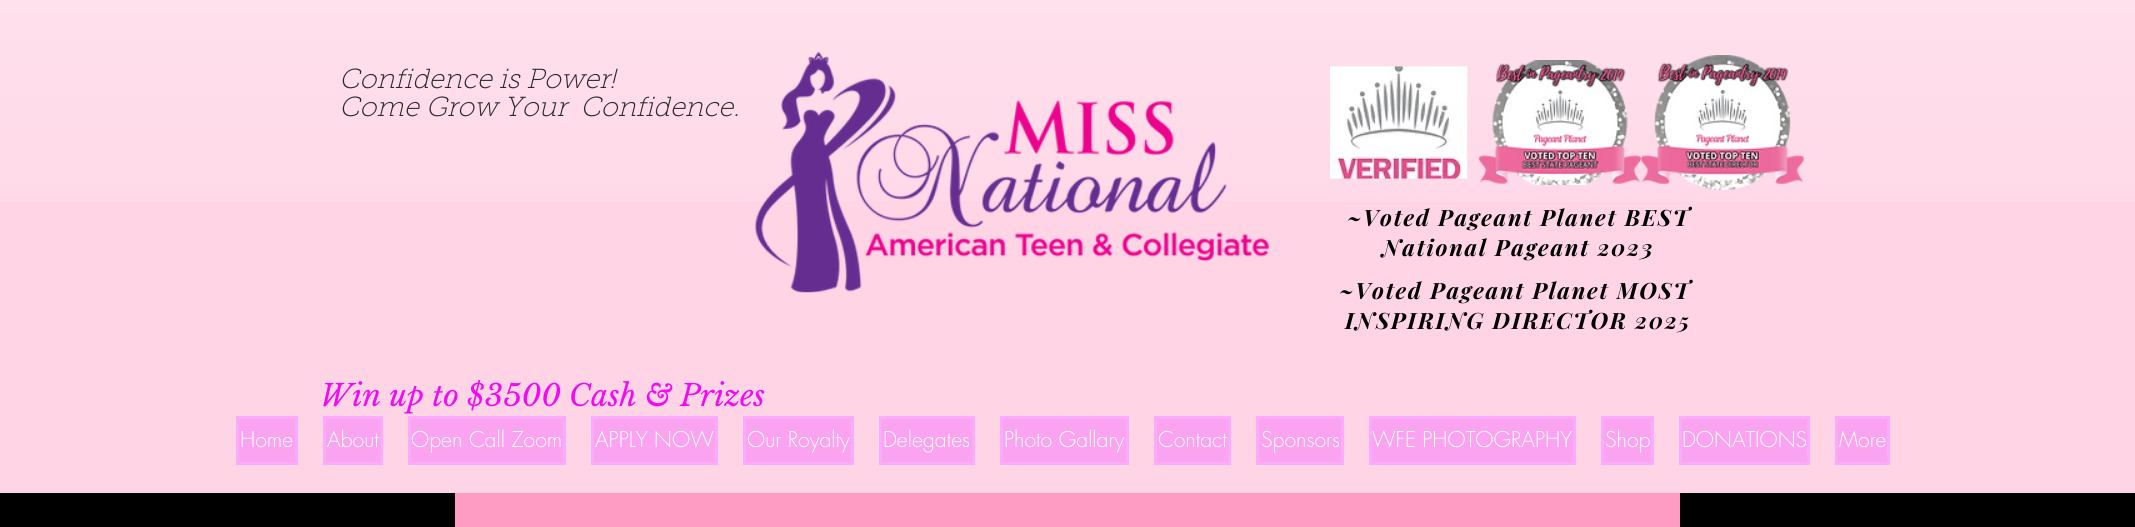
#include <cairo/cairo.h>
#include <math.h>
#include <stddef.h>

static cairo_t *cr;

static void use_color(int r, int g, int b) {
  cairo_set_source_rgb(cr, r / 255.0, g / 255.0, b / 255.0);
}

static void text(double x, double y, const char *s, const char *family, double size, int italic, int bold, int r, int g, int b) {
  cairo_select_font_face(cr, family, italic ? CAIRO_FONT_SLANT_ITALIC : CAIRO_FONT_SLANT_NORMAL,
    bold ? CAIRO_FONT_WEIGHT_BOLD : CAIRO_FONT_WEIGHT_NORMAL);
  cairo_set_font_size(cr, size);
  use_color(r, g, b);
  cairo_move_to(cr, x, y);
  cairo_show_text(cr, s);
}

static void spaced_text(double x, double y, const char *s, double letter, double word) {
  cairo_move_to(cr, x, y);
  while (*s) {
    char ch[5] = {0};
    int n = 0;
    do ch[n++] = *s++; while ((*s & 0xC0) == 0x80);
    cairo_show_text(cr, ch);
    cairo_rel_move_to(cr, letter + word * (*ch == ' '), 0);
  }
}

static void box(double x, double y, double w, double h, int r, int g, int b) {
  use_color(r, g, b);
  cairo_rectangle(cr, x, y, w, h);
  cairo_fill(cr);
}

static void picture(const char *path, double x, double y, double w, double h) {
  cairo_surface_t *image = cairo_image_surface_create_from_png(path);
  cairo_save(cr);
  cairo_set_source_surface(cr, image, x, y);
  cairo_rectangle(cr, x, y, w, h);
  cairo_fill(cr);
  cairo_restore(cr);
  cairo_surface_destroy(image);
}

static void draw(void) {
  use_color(0, 0, 0);
  cairo_paint(cr);
  box(0, 0, 2135, 493, 255, 213, 230);
  picture("img_01.png", 0, 0, 2135, 201);
  picture("img_02.png", 754, 51, 515, 242);
  picture("img_03.png", 1330, 66, 138, 113);
  picture("img_04.png", 1478, 60, 164, 125);
  picture("img_05.png", 1641, 55, 163, 135);
  use_color(250, 163, 240);
  cairo_rectangle(cr, 237.5, 417.5, 59, 46);
  cairo_fill_preserve(cr);
  use_color(251, 171, 251);
  cairo_set_line_width(cr, 3);
  cairo_stroke(cr);
  use_color(250, 163, 240);
  cairo_rectangle(cr, 324.5, 417.5, 57, 46);
  cairo_fill_preserve(cr);
  use_color(251, 171, 251);
  cairo_stroke(cr);
  use_color(250, 163, 240);
  cairo_rectangle(cr, 409.5, 417.5, 155, 46);
  cairo_fill_preserve(cr);
  use_color(251, 171, 251);
  cairo_stroke(cr);
  use_color(250, 163, 240);
  cairo_rectangle(cr, 592.5, 417.5, 124, 46);
  cairo_fill_preserve(cr);
  use_color(251, 171, 251);
  cairo_stroke(cr);
  use_color(250, 163, 240);
  cairo_rectangle(cr, 744.5, 417.5, 108, 46);
  cairo_fill_preserve(cr);
  use_color(251, 171, 251);
  cairo_stroke(cr);
  use_color(250, 163, 240);
  cairo_rectangle(cr, 880.5, 417.5, 93, 46);
  cairo_fill_preserve(cr);
  use_color(251, 171, 251);
  cairo_stroke(cr);
  use_color(250, 163, 240);
  cairo_rectangle(cr, 1001.5, 417.5, 126, 46);
  cairo_fill_preserve(cr);
  use_color(251, 171, 251);
  cairo_stroke(cr);
  use_color(250, 163, 240);
  cairo_rectangle(cr, 1155.5, 417.5, 74, 46);
  cairo_fill_preserve(cr);
  use_color(251, 171, 251);
  cairo_stroke(cr);
  use_color(250, 163, 240);
  cairo_rectangle(cr, 1257.5, 417.5, 85, 46);
  cairo_fill_preserve(cr);
  use_color(251, 171, 251);
  cairo_stroke(cr);
  use_color(250, 163, 240);
  cairo_rectangle(cr, 1370.5, 417.5, 204, 46);
  cairo_fill_preserve(cr);
  use_color(251, 171, 251);
  cairo_stroke(cr);
  use_color(250, 163, 240);
  cairo_rectangle(cr, 1602.5, 417.5, 50, 46);
  cairo_fill_preserve(cr);
  use_color(251, 171, 251);
  cairo_stroke(cr);
  use_color(250, 163, 240);
  cairo_rectangle(cr, 1680.5, 417.5, 128, 46);
  cairo_fill_preserve(cr);
  use_color(251, 171, 251);
  cairo_stroke(cr);
  use_color(250, 163, 240);
  cairo_rectangle(cr, 1836.5, 417.5, 52, 46);
  cairo_fill_preserve(cr);
  use_color(251, 171, 251);
  cairo_stroke(cr);
  box(455, 493, 1225, 34, 255, 156, 196);
  text(339, 88, "Confidence is Power!", "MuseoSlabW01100 Thin", 27.5, 1, 0, 41, 41, 41);
  text(339, 116, "Come Grow Your  Confidence.", "MuseoSlabW01100 Thin", 27.5, 1, 0, 41, 41, 41);
  cairo_select_font_face(cr, "Playfair Display", CAIRO_FONT_SLANT_ITALIC, CAIRO_FONT_WEIGHT_BOLD);
  cairo_set_font_size(cr, 22.5);
  use_color(0, 0, 0);
  spaced_text(1347, 226, "~Voted Pageant Planet BEST", 1.8, 0);
  spaced_text(1382, 256, "National Pageant 2023", 1.8, 0);
  spaced_text(1339, 299, "~Voted Pageant Planet MOST", 1.8, 0);
  spaced_text(1345, 329, "INSPIRING DIRECTOR 2025", 1.8, 0);
  text(320, 406, "Win up to $3500 Cash & Prizes", "Libre Baskerville", 30, 1, 0, 242, 10, 242);
  text(240, 447, "Home", "futura Light", 21.25, 0, 0, 255, 255, 255);
  text(327, 447, "About", "futura Light", 21.25, 0, 0, 255, 255, 255);
  text(411, 447, "Open Call Zoom", "futura Light", 21.25, 0, 0, 255, 255, 255);
  text(595, 447, "APPLY NOW", "futura Light", 21.25, 0, 0, 255, 255, 255);
  text(747, 447, "Our Royalty", "futura Light", 21.25, 0, 0, 255, 255, 255);
  text(883, 447, "Delegates", "futura Light", 21.25, 0, 0, 255, 255, 255);
  text(1004, 447, "Photo Gallary", "futura Light", 21.25, 0, 0, 255, 255, 255);
  text(1158, 447, "Contact", "futura Light", 21.25, 0, 0, 255, 255, 255);
  text(1261, 447, "Sponsors", "futura Light", 21.25, 0, 0, 255, 255, 255);
  text(1372, 447, "WFE PHOTOGRAPHY", "futura Light", 21.25, 0, 0, 255, 255, 255);
  text(1605, 447, "Shop", "futura Light", 21.25, 0, 0, 255, 255, 255);
  text(1682, 447, "DONATIONS", "futura Light", 21.25, 0, 0, 255, 255, 255);
  text(1839, 447, "More", "futura Light", 21.25, 0, 0, 255, 255, 255);
}

int main(void) {
  cairo_surface_t *surface = cairo_image_surface_create(CAIRO_FORMAT_RGB24, 2135, 527);
  cr = cairo_create(surface);
  cairo_font_options_t *options = cairo_font_options_create();
  cairo_font_options_set_hint_metrics(options, CAIRO_HINT_METRICS_OFF);
  cairo_font_options_set_hint_style(options, CAIRO_HINT_STYLE_NONE);
  cairo_set_font_options(cr, options);
  cairo_set_miter_limit(cr, 4);
  draw();
  cairo_surface_write_to_png(surface, "out.png");
  cairo_font_options_destroy(options);
  cairo_destroy(cr);
  cairo_surface_destroy(surface);
  return 0;
}
